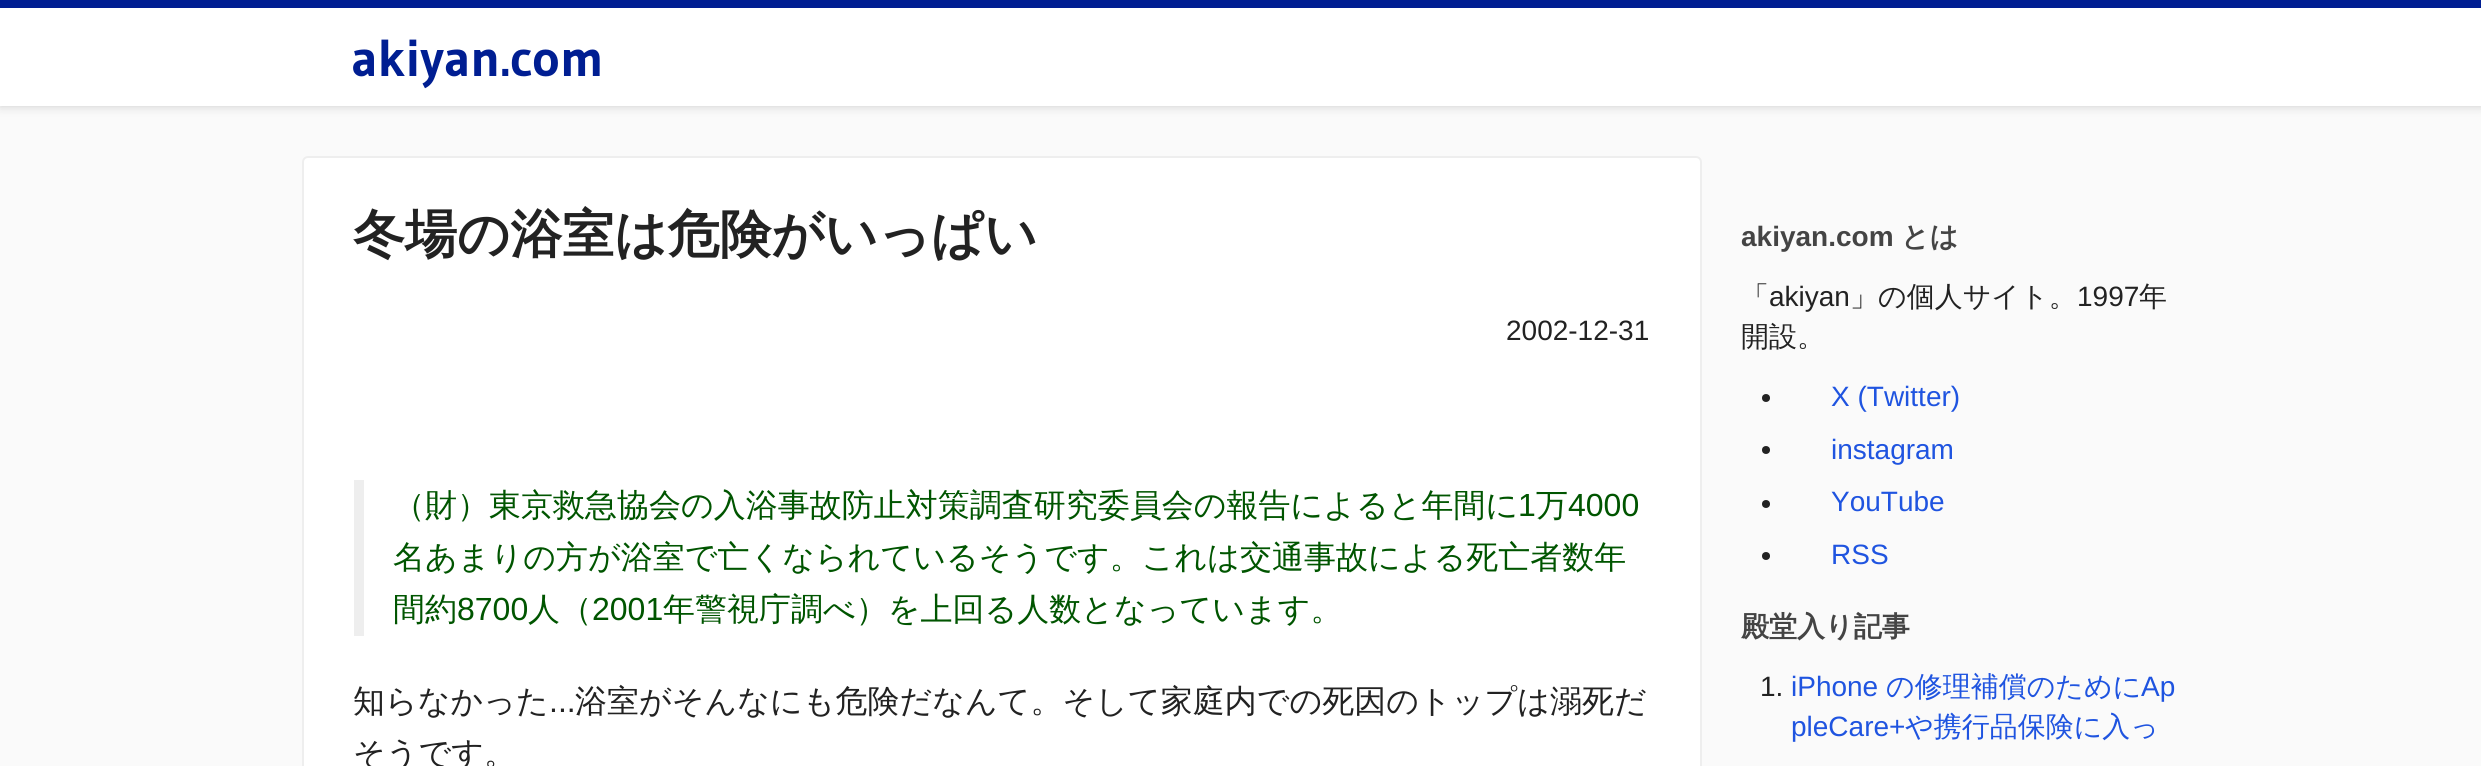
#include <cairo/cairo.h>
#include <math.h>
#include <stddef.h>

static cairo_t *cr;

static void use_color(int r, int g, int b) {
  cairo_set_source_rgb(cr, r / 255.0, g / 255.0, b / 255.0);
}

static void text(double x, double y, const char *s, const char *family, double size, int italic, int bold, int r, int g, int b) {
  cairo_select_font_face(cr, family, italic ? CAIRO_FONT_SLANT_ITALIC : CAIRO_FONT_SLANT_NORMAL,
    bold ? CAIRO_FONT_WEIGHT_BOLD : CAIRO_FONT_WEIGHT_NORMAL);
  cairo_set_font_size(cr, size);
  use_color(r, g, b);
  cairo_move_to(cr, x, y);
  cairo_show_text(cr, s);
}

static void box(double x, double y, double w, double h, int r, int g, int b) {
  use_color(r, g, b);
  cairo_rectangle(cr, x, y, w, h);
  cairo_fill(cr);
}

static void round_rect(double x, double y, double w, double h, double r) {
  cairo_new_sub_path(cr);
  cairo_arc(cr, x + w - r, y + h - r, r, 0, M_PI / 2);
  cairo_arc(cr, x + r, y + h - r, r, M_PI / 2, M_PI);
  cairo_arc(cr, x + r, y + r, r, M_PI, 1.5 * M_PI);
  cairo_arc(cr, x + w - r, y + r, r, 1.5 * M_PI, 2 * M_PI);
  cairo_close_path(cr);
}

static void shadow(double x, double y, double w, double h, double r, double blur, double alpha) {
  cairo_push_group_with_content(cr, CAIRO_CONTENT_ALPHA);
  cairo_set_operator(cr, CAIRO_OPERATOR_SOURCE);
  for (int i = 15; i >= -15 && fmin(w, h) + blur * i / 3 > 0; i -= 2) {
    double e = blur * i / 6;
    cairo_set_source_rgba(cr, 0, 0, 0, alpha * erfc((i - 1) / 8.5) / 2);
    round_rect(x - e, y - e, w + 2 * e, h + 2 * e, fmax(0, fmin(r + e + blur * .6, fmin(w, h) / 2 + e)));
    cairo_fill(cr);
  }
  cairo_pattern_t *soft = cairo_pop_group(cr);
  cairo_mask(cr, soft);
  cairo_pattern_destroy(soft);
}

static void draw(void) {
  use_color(250, 250, 250);
  cairo_paint(cr);
  use_color(204, 204, 204);
  shadow(0, 0, 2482, 106, 0, 5, 1);
  box(0, 8, 2481, 98, 255, 255, 255);
  box(0, 0, 2481, 8, 0, 30, 146);
  use_color(255, 255, 255);
  round_rect(303, 157, 1398, 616, 5);
  cairo_fill_preserve(cr);
  use_color(238, 238, 238);
  cairo_stroke(cr);
  box(354, 480, 10, 156, 238, 238, 238);
  use_color(34, 34, 34);
  cairo_arc(cr, 1766, 398, 4, 0, 2 * M_PI);
  cairo_fill(cr);
  cairo_arc(cr, 1766, 450, 4, 0, 2 * M_PI);
  cairo_fill(cr);
  cairo_arc(cr, 1766, 504, 4, 0, 2 * M_PI);
  cairo_fill(cr);
  cairo_arc(cr, 1766, 556, 4, 0, 2 * M_PI);
  cairo_fill(cr);
  text(351, 76, "akiyan.com", "Gudea", 52, 0, 1, 0, 30, 146);
  text(353, 252, "冬場の浴室は危険がいっぱい", "WenQuanYi Zen Hei", 52, 0, 1, 34, 34, 34);
  text(1506, 340, "2002-12-31", "Liberation Sans", 28, 0, 0, 34, 34, 34);
  text(393, 516, "（財）東京救急協会の入浴事故防止対策調査研究委員会の報告によると年間に", "WenQuanYi Zen Hei Medium", 32, 0, 0, 0, 85, 0);
  text(1518, 516, "1", "Liberation Sans", 32, 0, 0, 0, 85, 0);
  text(1536, 516, "万", "WenQuanYi Zen Hei Medium", 32, 0, 0, 0, 85, 0);
  text(1568, 516, "4000", "Liberation Sans", 32, 0, 0, 0, 85, 0);
  text(393, 568, "名あまりの方が浴室で亡くなられているそうです。これは交通事故による死亡者数年", "WenQuanYi Zen Hei Medium", 32, 0, 0, 0, 85, 0);
  text(393, 620, "間約", "WenQuanYi Zen Hei Medium", 32, 0, 0, 0, 85, 0);
  text(457, 620, "8700", "Liberation Sans", 32, 0, 0, 0, 85, 0);
  text(528, 620, "人（", "WenQuanYi Zen Hei Medium", 32, 0, 0, 0, 85, 0);
  text(592, 620, "2001", "Liberation Sans", 32, 0, 0, 0, 85, 0);
  text(663, 620, "年警視庁調べ）を上回る人数となっています。", "WenQuanYi Zen Hei Medium", 32, 0, 0, 0, 85, 0);
  text(353, 712, "知らなかった", "WenQuanYi Zen Hei Medium", 32, 0, 0, 34, 34, 34);
  text(549, 712, "...", "Liberation Sans", 32, 0, 0, 34, 34, 34);
  text(575, 712, "浴室がそんなにも危険だなんて。そして家庭内での死因のトップは溺死だ", "WenQuanYi Zen Hei Medium", 32, 0, 0, 34, 34, 34);
  text(353, 764, "そうです。", "WenQuanYi Zen Hei Medium", 32, 0, 0, 34, 34, 34);
  text(1741, 246, "akiyan.com", "Liberation Sans", 28, 0, 1, 68, 68, 68);
  text(1901, 246, "とは", "WenQuanYi Zen Hei", 28, 0, 1, 68, 68, 68);
  text(1741, 306, "「", "WenQuanYi Zen Hei Medium", 28, 0, 0, 34, 34, 34);
  text(1769, 306, "akiyan", "Liberation Sans", 28, 0, 0, 34, 34, 34);
  text(1850, 306, "」の個人サイト。", "WenQuanYi Zen Hei Medium", 28, 0, 0, 34, 34, 34);
  text(2077, 306, "1997", "Liberation Sans", 28, 0, 0, 34, 34, 34);
  text(2139, 306, "年", "WenQuanYi Zen Hei Medium", 28, 0, 0, 34, 34, 34);
  text(1741, 346, "開設。", "WenQuanYi Zen Hei Medium", 28, 0, 0, 34, 34, 34);
  text(1831, 406, "X (Twitter)", "Liberation Sans", 28, 0, 0, 31, 84, 224);
  text(1831, 459, "instagram", "Liberation Sans", 28, 0, 0, 31, 84, 224);
  text(1831, 511, "YouTube", "Liberation Sans", 28, 0, 0, 31, 84, 224);
  text(1831, 564, "RSS", "Liberation Sans", 28, 0, 0, 31, 84, 224);
  text(1741, 636, "殿堂入り記事", "WenQuanYi Zen Hei", 28, 0, 1, 68, 68, 68);
  text(1760, 696, "1.", "Liberation Sans", 28, 0, 0, 34, 34, 34);
  text(1791, 696, "iPhone", "Liberation Sans", 28, 0, 0, 31, 84, 224);
  text(1886, 696, "の修理補償のために", "WenQuanYi Zen Hei Medium", 28, 0, 0, 31, 84, 224);
  text(2141, 696, "Ap", "Liberation Sans", 28, 0, 0, 31, 84, 224);
  text(1791, 736, "pleCare+", "Liberation Sans", 28, 0, 0, 31, 84, 224);
  text(1905, 736, "や携行品保険に入っ", "WenQuanYi Zen Hei Medium", 28, 0, 0, 31, 84, 224);
}

int main(void) {
  cairo_surface_t *surface = cairo_image_surface_create(CAIRO_FORMAT_RGB24, 2481, 766);
  cr = cairo_create(surface);
  cairo_font_options_t *options = cairo_font_options_create();
  cairo_font_options_set_hint_metrics(options, CAIRO_HINT_METRICS_OFF);
  cairo_font_options_set_hint_style(options, CAIRO_HINT_STYLE_NONE);
  cairo_set_font_options(cr, options);
  cairo_set_miter_limit(cr, 4);
  draw();
  cairo_surface_write_to_png(surface, "out.png");
  cairo_font_options_destroy(options);
  cairo_destroy(cr);
  cairo_surface_destroy(surface);
  return 0;
}
